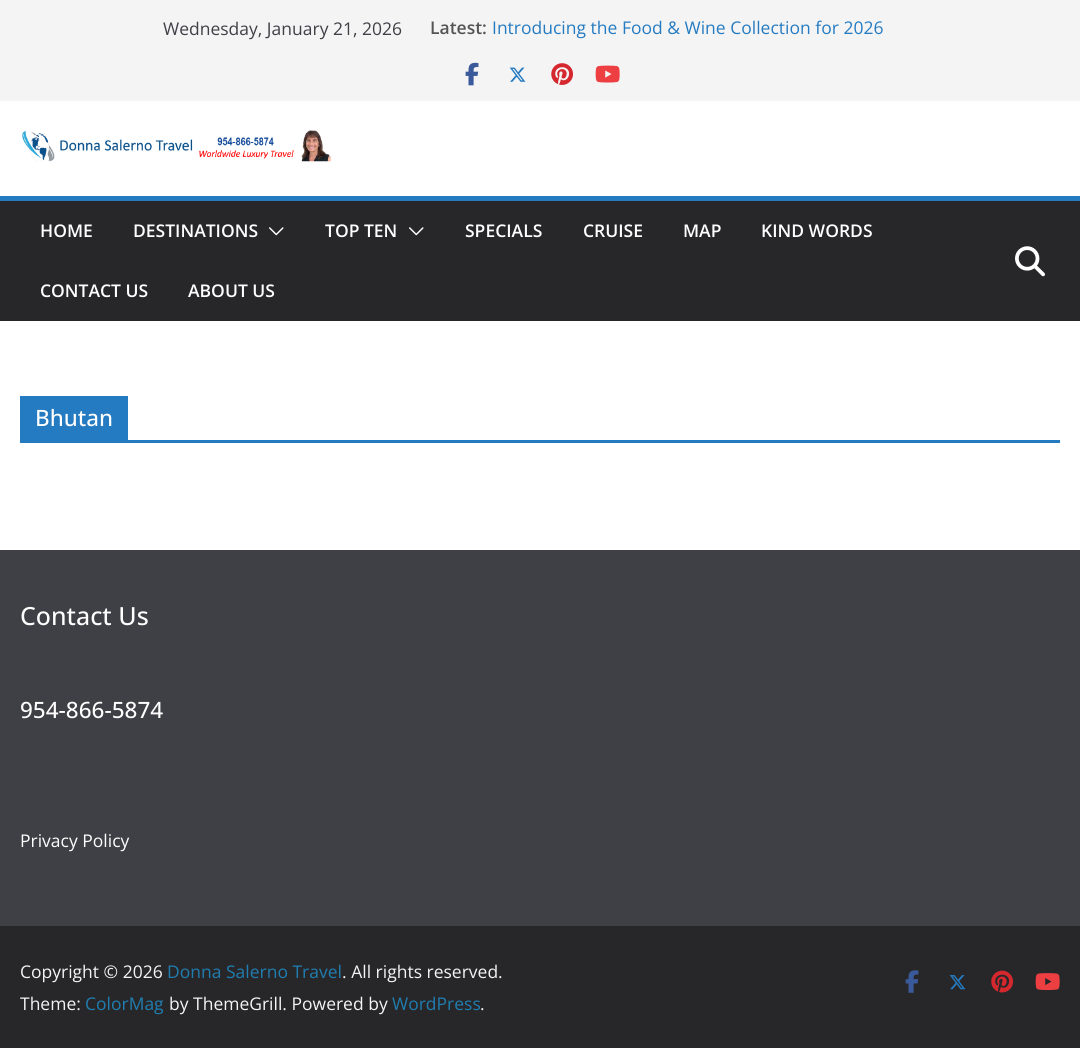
#include <cairo/cairo.h>
#include <math.h>
#include <stddef.h>

static cairo_t *cr;

static void use_color(int r, int g, int b) {
  cairo_set_source_rgb(cr, r / 255.0, g / 255.0, b / 255.0);
}

static void text(double x, double y, const char *s, const char *family, double size, int italic, int bold, int r, int g, int b) {
  cairo_select_font_face(cr, family, italic ? CAIRO_FONT_SLANT_ITALIC : CAIRO_FONT_SLANT_NORMAL,
    bold ? CAIRO_FONT_WEIGHT_BOLD : CAIRO_FONT_WEIGHT_NORMAL);
  cairo_set_font_size(cr, size);
  use_color(r, g, b);
  cairo_move_to(cr, x, y);
  cairo_show_text(cr, s);
}

static void box(double x, double y, double w, double h, int r, int g, int b) {
  use_color(r, g, b);
  cairo_rectangle(cr, x, y, w, h);
  cairo_fill(cr);
}

static void round_rect(double x, double y, double w, double h, double r) {
  cairo_new_sub_path(cr);
  cairo_arc(cr, x + w - r, y + h - r, r, 0, M_PI / 2);
  cairo_arc(cr, x + r, y + h - r, r, M_PI / 2, M_PI);
  cairo_arc(cr, x + r, y + r, r, M_PI, 1.5 * M_PI);
  cairo_arc(cr, x + w - r, y + r, r, 1.5 * M_PI, 2 * M_PI);
  cairo_close_path(cr);
}

static void shadow(double x, double y, double w, double h, double r, double blur, double alpha) {
  cairo_push_group_with_content(cr, CAIRO_CONTENT_ALPHA);
  cairo_set_operator(cr, CAIRO_OPERATOR_SOURCE);
  for (int i = 15; i >= -15 && fmin(w, h) + blur * i / 3 > 0; i -= 2) {
    double e = blur * i / 6;
    cairo_set_source_rgba(cr, 0, 0, 0, alpha * erfc((i - 1) / 8.5) / 2);
    round_rect(x - e, y - e, w + 2 * e, h + 2 * e, fmax(0, fmin(r + e + blur * .6, fmin(w, h) / 2 + e)));
    cairo_fill(cr);
  }
  cairo_pattern_t *soft = cairo_pop_group(cr);
  cairo_mask(cr, soft);
  cairo_pattern_destroy(soft);
}

static void picture(const char *path, double x, double y, double w, double h) {
  cairo_surface_t *image = cairo_image_surface_create_from_png(path);
  cairo_save(cr);
  cairo_set_source_surface(cr, image, x, y);
  cairo_rectangle(cr, x, y, w, h);
  cairo_fill(cr);
  cairo_restore(cr);
  cairo_surface_destroy(image);
}

static void draw(void) {
  use_color(255, 255, 255);
  cairo_paint(cr);
  use_color(0, 0, 0);
  shadow(0, 0, 1080, 100, 0, 1, 0.1);
  box(0, 0, 1080, 100, 244, 244, 245);
  picture("img_01.png", 465, 62, 14, 24);
  picture("img_02.png", 509, 67, 17, 15);
  picture("img_03.png", 551, 63, 22, 22);
  picture("img_04.png", 595, 65, 25, 18);
  picture("img_05.png", 22, 130, 309, 32);
  box(0, 201, 1080, 120, 39, 39, 42);
  box(0, 196, 1080, 5, 37, 123, 193);
  picture("img_06.png", 269, 227, 15, 9);
  picture("img_06.png", 409, 227, 15, 9);
  picture("img_07.png", 1015, 246, 30, 31);
  box(20, 440, 1040, 3, 37, 123, 193);
  box(20, 396, 108, 44, 37, 123, 193);
  box(0, 550, 1080, 376, 63, 63, 70);
  box(0, 926, 1080, 122, 39, 39, 42);
  picture("img_08.png", 905, 970, 14, 23);
  picture("img_09.png", 949, 975, 17, 15);
  picture("img_10.png", 991, 970, 23, 23);
  picture("img_11.png", 1035, 973, 25, 17);
  text(163, 35, "Wednesday, January 21, 2026", "Open Sans", 17.5, 0, 0, 63, 63, 70);
  text(430, 34, "Latest:", "Open Sans SemiBold", 17.5, 0, 0, 85, 85, 85);
  text(492, 34, "Introducing the Food & Wine Collection for 2026", "Open Sans", 17.5, 0, 0, 37, 123, 193);
  text(40, 237, "HOME", "Open Sans SemiBold", 17.5, 0, 0, 255, 255, 255);
  text(133, 237, "DESTINATIONS", "Open Sans SemiBold", 17.5, 0, 0, 255, 255, 255);
  text(325, 237, "TOP TEN", "Open Sans SemiBold", 17.5, 0, 0, 255, 255, 255);
  text(465, 237, "SPECIALS", "Open Sans SemiBold", 17.5, 0, 0, 255, 255, 255);
  text(583, 237, "CRUISE", "Open Sans SemiBold", 17.5, 0, 0, 255, 255, 255);
  text(683, 237, "MAP", "Open Sans SemiBold", 17.5, 0, 0, 255, 255, 255);
  text(761, 237, "KIND WORDS", "Open Sans SemiBold", 17.5, 0, 0, 255, 255, 255);
  text(40, 297, "CONTACT US", "Open Sans SemiBold", 17.5, 0, 0, 255, 255, 255);
  text(188, 297, "ABOUT US", "Open Sans SemiBold", 17.5, 0, 0, 255, 255, 255);
  text(35, 426, "Bhutan", "Open Sans Medium", 22.5, 0, 0, 255, 255, 255);
  text(20, 625, "Contact Us", "Open Sans Medium", 25, 0, 0, 255, 255, 255);
  text(20, 718, "954-866-5874", "Open Sans Medium", 22.5, 0, 0, 255, 255, 255);
  text(20, 847, "Privacy Policy", "Open Sans", 17.5, 0, 0, 255, 255, 255);
  text(20, 978, "Copyright © 2026", "Open Sans", 17.5, 0, 0, 244, 244, 245);
  text(167, 978, "Donna Salerno Travel", "Open Sans", 17.5, 0, 0, 32, 125, 175);
  text(342, 978, ". All rights reserved.", "Open Sans", 17.5, 0, 0, 244, 244, 245);
  text(20, 1010, "Theme:", "Open Sans", 17.5, 0, 0, 244, 244, 245);
  text(85, 1010, "ColorMag", "Open Sans", 17.5, 0, 0, 32, 125, 175);
  text(169, 1010, "by ThemeGrill. Powered by", "Open Sans", 17.5, 0, 0, 244, 244, 245);
  text(392, 1010, "WordPress", "Open Sans", 17.5, 0, 0, 32, 125, 175);
  text(480, 1010, ".", "Open Sans", 17.5, 0, 0, 244, 244, 245);
}

int main(void) {
  cairo_surface_t *surface = cairo_image_surface_create(CAIRO_FORMAT_RGB24, 1080, 1048);
  cr = cairo_create(surface);
  cairo_font_options_t *options = cairo_font_options_create();
  cairo_font_options_set_hint_metrics(options, CAIRO_HINT_METRICS_OFF);
  cairo_font_options_set_hint_style(options, CAIRO_HINT_STYLE_NONE);
  cairo_set_font_options(cr, options);
  cairo_set_miter_limit(cr, 4);
  draw();
  cairo_surface_write_to_png(surface, "out.png");
  cairo_font_options_destroy(options);
  cairo_destroy(cr);
  cairo_surface_destroy(surface);
  return 0;
}
